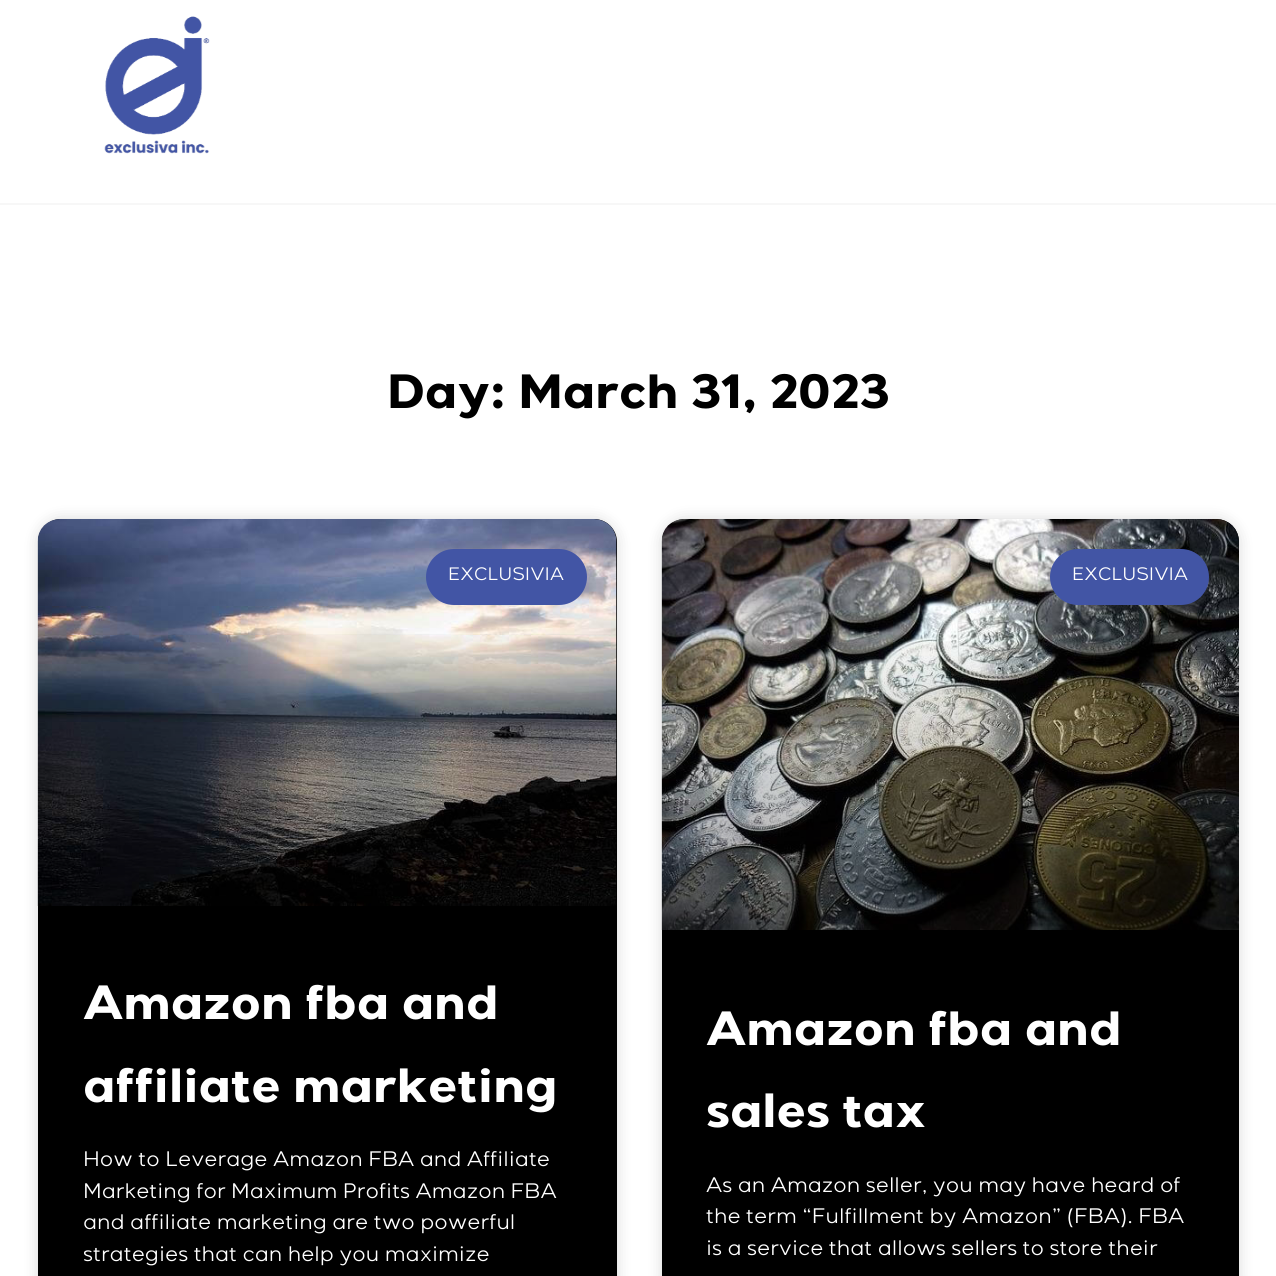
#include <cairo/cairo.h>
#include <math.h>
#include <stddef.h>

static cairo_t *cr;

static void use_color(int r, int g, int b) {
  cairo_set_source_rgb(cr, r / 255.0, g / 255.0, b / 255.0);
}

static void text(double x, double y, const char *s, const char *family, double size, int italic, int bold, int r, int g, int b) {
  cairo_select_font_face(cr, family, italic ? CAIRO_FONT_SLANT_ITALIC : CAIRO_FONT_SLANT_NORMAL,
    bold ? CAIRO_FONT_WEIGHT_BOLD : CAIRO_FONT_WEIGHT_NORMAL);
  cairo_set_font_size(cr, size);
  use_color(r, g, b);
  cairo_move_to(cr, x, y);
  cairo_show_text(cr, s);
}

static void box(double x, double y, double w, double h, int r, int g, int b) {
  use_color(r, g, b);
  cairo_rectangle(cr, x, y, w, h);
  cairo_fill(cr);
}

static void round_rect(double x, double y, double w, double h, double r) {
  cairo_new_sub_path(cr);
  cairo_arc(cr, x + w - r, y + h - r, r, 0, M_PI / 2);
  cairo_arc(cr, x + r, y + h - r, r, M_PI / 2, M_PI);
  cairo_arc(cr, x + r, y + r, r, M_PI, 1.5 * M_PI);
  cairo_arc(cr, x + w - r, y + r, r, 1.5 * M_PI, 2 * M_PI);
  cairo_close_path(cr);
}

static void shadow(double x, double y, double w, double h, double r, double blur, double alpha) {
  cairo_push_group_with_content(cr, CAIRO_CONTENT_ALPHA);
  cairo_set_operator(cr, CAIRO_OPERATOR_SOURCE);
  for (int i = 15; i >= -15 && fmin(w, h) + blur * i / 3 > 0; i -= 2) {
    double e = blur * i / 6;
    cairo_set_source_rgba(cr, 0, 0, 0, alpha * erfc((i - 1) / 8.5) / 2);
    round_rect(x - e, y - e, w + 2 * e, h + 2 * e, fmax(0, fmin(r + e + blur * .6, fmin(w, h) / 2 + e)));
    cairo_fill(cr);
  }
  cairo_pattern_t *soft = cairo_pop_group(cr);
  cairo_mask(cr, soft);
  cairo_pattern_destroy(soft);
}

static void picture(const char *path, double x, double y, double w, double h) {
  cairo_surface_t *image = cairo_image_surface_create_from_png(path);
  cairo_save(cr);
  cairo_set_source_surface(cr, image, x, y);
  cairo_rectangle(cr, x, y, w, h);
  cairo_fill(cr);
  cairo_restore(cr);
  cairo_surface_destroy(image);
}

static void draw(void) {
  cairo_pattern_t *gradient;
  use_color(255, 255, 255);
  cairo_paint(cr);
  box(0, 203, 1276, 2, 247, 247, 247);
  picture("img_01.png", 104, 16, 106, 138);
  use_color(0, 0, 0);
  shadow(38, 519, 579, 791, 23, 7.5, 0.15);
  use_color(0, 0, 0);
  round_rect(38, 519, 579, 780, 23);
  cairo_fill(cr);
  picture("img_02.png", 37, 519, 580, 387);
  gradient = cairo_pattern_create_linear(327, 906, 327, 519);
  cairo_pattern_add_color_stop_rgba(gradient, 0, 0, 0, 0, 0.35);
  cairo_pattern_add_color_stop_rgba(gradient, 0.75, 0, 0, 0, 0);
  cairo_set_source(cr, gradient);
  cairo_pattern_destroy(gradient);
  cairo_rectangle(cr, 38, 634, 579, 272);
  cairo_fill(cr);
  use_color(66, 85, 165);
  round_rect(426, 549, 161, 56, 28);
  cairo_fill(cr);
  use_color(0, 0, 0);
  shadow(662, 519, 577, 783, 23, 7.5, 0.15);
  use_color(0, 0, 0);
  round_rect(662, 519, 577, 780, 23);
  cairo_fill(cr);
  picture("img_03.png", 661, 519, 578, 411);
  gradient = cairo_pattern_create_linear(950, 930, 950, 519);
  cairo_pattern_add_color_stop_rgba(gradient, 0, 0, 0, 0, 0.35);
  cairo_pattern_add_color_stop_rgba(gradient, 0.75, 0, 0, 0, 0);
  cairo_set_source(cr, gradient);
  cairo_pattern_destroy(gradient);
  cairo_rectangle(cr, 662, 641, 577, 289);
  cairo_fill(cr);
  use_color(66, 85, 165);
  round_rect(1050, 549, 159, 56, 28);
  cairo_fill(cr);
  text(387, 408, "Day: March 31, 2023", "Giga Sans", 48, 0, 1, 0, 0, 0);
  text(448, 580, "EXCLUSIVIA", "Giga Sans", 18, 0, 0, 255, 255, 255);
  text(83, 1019, "Amazon fba and", "Giga Sans", 48, 0, 1, 255, 255, 255);
  text(83, 1102, "affiliate marketing", "Giga Sans", 48, 0, 1, 255, 255, 255);
  text(83, 1166, "How to Leverage Amazon FBA and Affiliate", "Giga Sans", 21, 0, 0, 255, 255, 255);
  text(83, 1198, "Marketing for Maximum Profits Amazon FBA", "Giga Sans", 21, 0, 0, 255, 255, 255);
  text(83, 1229, "and affiliate marketing are two powerful", "Giga Sans", 21, 0, 0, 255, 255, 255);
  text(83, 1261, "strategies that can help you maximize", "Giga Sans", 21, 0, 0, 255, 255, 255);
  text(1072, 580, "EXCLUSIVIA", "Giga Sans", 18, 0, 0, 255, 255, 255);
  text(706, 1045, "Amazon fba and", "Giga Sans", 48, 0, 1, 255, 255, 255);
  text(706, 1127, "sales tax", "Giga Sans", 48, 0, 1, 255, 255, 255);
  text(706, 1192, "As an Amazon seller, you may have heard of", "Giga Sans", 21, 0, 0, 255, 255, 255);
  text(706, 1223, "the term “Fulfillment by Amazon” (FBA). FBA", "Giga Sans", 21, 0, 0, 255, 255, 255);
  text(706, 1255, "is a service that allows sellers to store their", "Giga Sans", 21, 0, 0, 255, 255, 255);
}

int main(void) {
  cairo_surface_t *surface = cairo_image_surface_create(CAIRO_FORMAT_RGB24, 1276, 1276);
  cr = cairo_create(surface);
  cairo_font_options_t *options = cairo_font_options_create();
  cairo_font_options_set_hint_metrics(options, CAIRO_HINT_METRICS_OFF);
  cairo_font_options_set_hint_style(options, CAIRO_HINT_STYLE_NONE);
  cairo_set_font_options(cr, options);
  cairo_set_miter_limit(cr, 4);
  draw();
  cairo_surface_write_to_png(surface, "out.png");
  cairo_font_options_destroy(options);
  cairo_destroy(cr);
  cairo_surface_destroy(surface);
  return 0;
}
